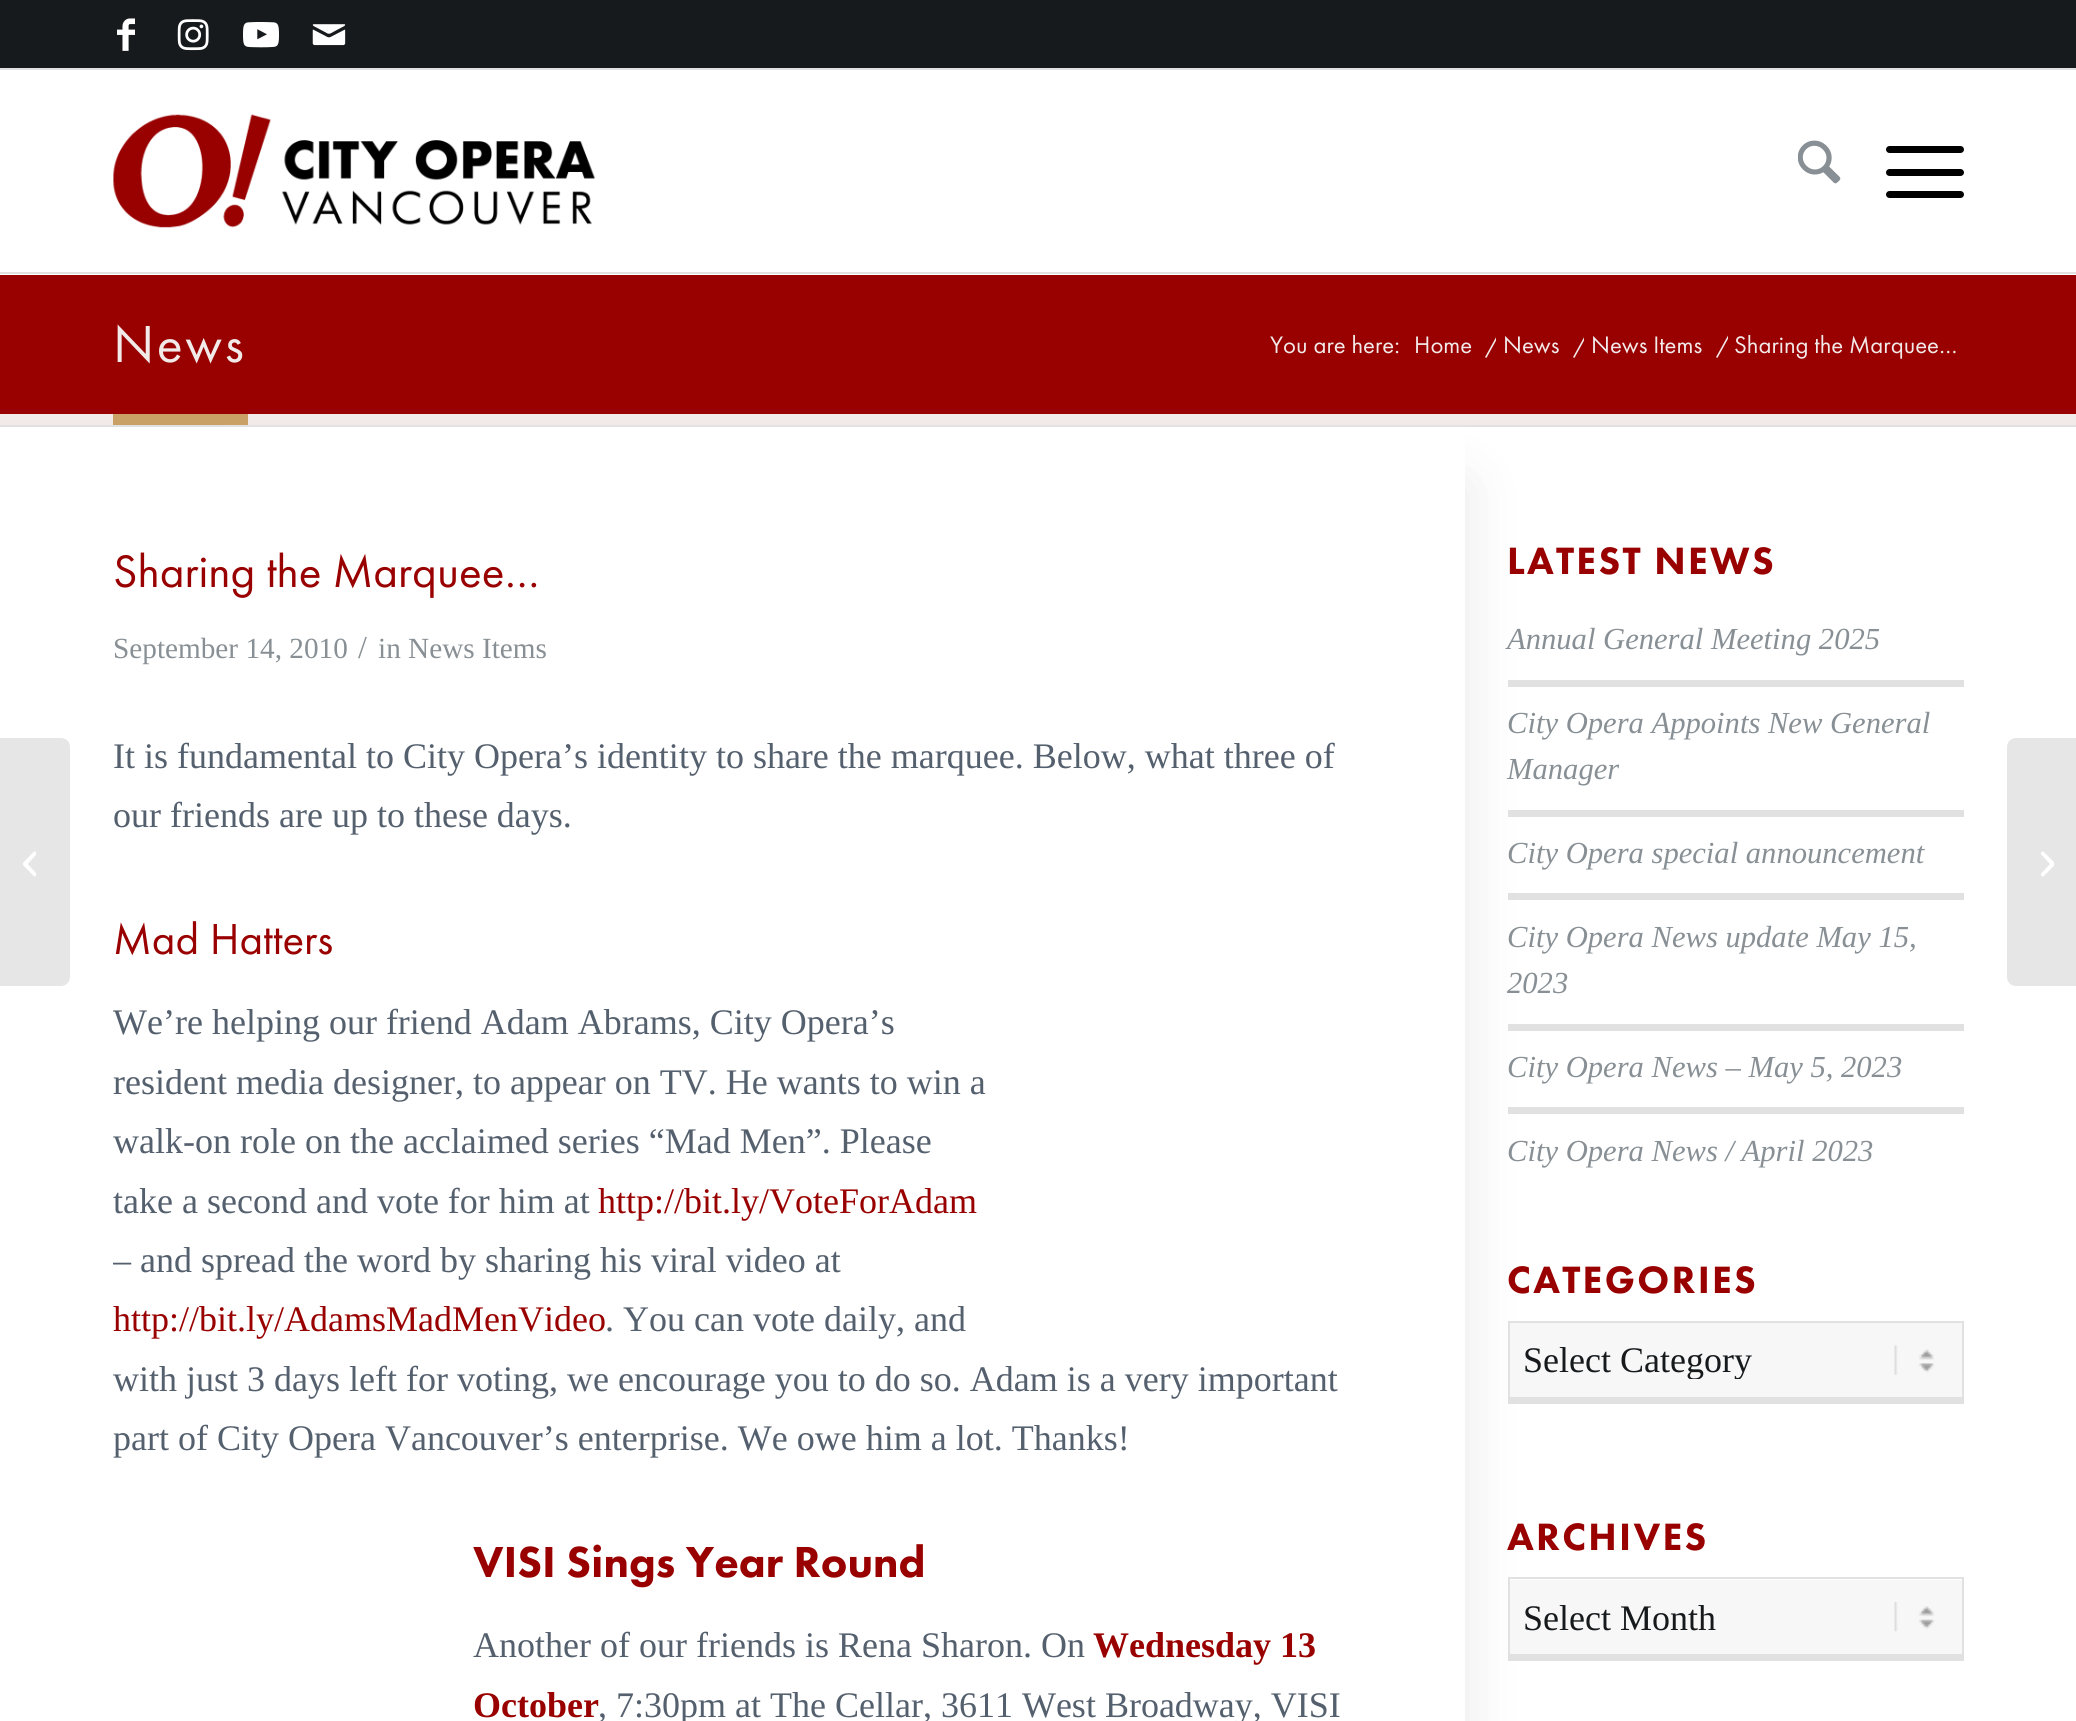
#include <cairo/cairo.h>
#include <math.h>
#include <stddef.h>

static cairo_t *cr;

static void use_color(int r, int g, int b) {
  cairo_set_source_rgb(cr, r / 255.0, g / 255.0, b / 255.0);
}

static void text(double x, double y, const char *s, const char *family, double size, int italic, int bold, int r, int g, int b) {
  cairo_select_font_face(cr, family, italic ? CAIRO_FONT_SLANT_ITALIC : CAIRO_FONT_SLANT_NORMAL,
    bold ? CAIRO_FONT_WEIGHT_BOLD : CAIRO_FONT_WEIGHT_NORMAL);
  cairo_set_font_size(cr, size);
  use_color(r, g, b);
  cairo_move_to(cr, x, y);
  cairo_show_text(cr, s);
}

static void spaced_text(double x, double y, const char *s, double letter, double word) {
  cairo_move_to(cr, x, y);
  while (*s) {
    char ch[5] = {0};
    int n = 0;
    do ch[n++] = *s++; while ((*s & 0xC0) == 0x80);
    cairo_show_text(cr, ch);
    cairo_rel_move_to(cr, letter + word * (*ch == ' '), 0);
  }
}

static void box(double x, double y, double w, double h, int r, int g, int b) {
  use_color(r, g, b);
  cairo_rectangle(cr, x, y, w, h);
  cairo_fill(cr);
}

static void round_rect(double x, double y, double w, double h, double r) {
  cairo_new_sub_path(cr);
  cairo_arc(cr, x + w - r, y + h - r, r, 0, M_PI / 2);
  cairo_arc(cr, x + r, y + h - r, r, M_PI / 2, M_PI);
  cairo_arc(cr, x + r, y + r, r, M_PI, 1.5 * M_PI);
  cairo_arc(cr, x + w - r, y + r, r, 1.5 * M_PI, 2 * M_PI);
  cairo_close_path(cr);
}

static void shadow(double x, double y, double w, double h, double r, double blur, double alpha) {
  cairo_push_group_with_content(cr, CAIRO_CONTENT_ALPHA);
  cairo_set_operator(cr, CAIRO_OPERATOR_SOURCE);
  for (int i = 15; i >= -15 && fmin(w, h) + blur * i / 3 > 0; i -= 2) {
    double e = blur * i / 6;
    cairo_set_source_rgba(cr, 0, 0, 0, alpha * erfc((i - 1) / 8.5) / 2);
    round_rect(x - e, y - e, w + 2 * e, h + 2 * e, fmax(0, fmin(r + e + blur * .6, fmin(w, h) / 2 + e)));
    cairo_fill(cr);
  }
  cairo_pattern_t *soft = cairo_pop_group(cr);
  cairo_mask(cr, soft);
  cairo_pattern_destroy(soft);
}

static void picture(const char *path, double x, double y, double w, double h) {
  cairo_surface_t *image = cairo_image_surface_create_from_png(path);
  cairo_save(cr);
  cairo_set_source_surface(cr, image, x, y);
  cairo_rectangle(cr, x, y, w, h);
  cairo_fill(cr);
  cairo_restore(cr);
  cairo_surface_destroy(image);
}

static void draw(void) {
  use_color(255, 255, 255);
  cairo_paint(cr);
  box(0, 0, 2076, 68, 22, 26, 28);
  picture("img_01.png", 117, 18, 18, 33);
  picture("img_02.png", 177, 19, 32, 32);
  picture("img_03.png", 243, 22, 36, 26);
  picture("img_04.png", 312, 24, 34, 22);
  box(0, 68, 2076, 2, 225, 225, 225);
  box(0, 272, 2076, 2, 225, 225, 225);
  picture("img_05.png", 113, 114, 483, 114);
  picture("img_06.png", 1798, 140, 43, 44);
  use_color(0, 0, 0);
  round_rect(1886, 169, 78, 7, 3.5);
  cairo_fill(cr);
  round_rect(1886, 146, 78, 7, 3.5);
  cairo_fill(cr);
  round_rect(1886, 191, 78, 7, 3.5);
  cairo_fill(cr);
  use_color(230, 230, 230);
  cairo_new_path(cr);
  cairo_move_to(cr, 0, 738);
  cairo_line_to(cr, 61, 738);
  cairo_curve_to(cr, 66, 738, 70, 742, 70, 747);
  cairo_line_to(cr, 70, 977);
  cairo_curve_to(cr, 70, 982, 66, 986, 61, 986);
  cairo_line_to(cr, 0, 986);
  cairo_close_path(cr);
  cairo_fill(cr);
  picture("img_07.png", 23, 851, 13, 26);
  box(0, 275, 2076, 139, 153, 0, 0);
  box(0, 414, 2076, 11, 242, 233, 233);
  box(0, 425, 2076, 2, 225, 225, 225);
  cairo_save(cr);
  cairo_set_fill_rule(cr, CAIRO_FILL_RULE_EVEN_ODD);
  cairo_new_path(cr);
  cairo_move_to(cr, 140, 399);
  cairo_line_to(cr, 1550, 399);
  cairo_line_to(cr, 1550, 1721);
  cairo_line_to(cr, 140, 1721);
  cairo_close_path(cr);
  cairo_move_to(cr, 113, 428);
  cairo_line_to(cr, 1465, 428);
  cairo_line_to(cr, 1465, 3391);
  cairo_line_to(cr, 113, 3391);
  cairo_close_path(cr);
  cairo_clip(cr);
  use_color(233, 233, 235);
  shadow(225, 484, 1240, 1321, 0, 28, 1);
  cairo_restore(cr);
  box(113, 414, 135, 11, 201, 161, 102);
  box(1508, 680, 456, 7, 225, 225, 225);
  box(1508, 810, 456, 7, 225, 225, 225);
  box(1508, 893, 456, 7, 225, 225, 225);
  box(1508, 1024, 456, 7, 225, 225, 225);
  box(1508, 1107, 456, 7, 225, 225, 225);
  box(1510, 1323, 452, 74, 247, 247, 247);
  picture("img_08.png", 1894, 1345, 40, 30);
  box(1508, 1321, 456, 2, 225, 225, 225);
  box(1962, 1321, 2, 83, 225, 225, 225);
  box(1508, 1397, 456, 7, 225, 225, 225);
  box(1508, 1321, 2, 83, 225, 225, 225);
  box(1510, 1580, 452, 74, 247, 247, 247);
  picture("img_09.png", 1894, 1602, 41, 30);
  box(1508, 1577, 456, 2, 225, 225, 225);
  box(1962, 1577, 2, 84, 225, 225, 225);
  box(1508, 1654, 456, 7, 225, 225, 225);
  box(1508, 1577, 2, 84, 225, 225, 225);
  use_color(230, 230, 230);
  cairo_new_path(cr);
  cairo_move_to(cr, 2016, 738);
  cairo_line_to(cr, 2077, 738);
  cairo_line_to(cr, 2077, 986);
  cairo_line_to(cr, 2016, 986);
  cairo_curve_to(cr, 2011, 986, 2007, 982, 2007, 977);
  cairo_line_to(cr, 2007, 747);
  cairo_curve_to(cr, 2007, 742, 2011, 738, 2016, 738);
  cairo_close_path(cr);
  cairo_fill(cr);
  picture("img_10.png", 2041, 851, 13, 26);
  cairo_select_font_face(cr, "Futura PT", CAIRO_FONT_SLANT_NORMAL, CAIRO_FONT_WEIGHT_NORMAL);
  cairo_set_font_size(cr, 54);
  use_color(242, 233, 233);
  spaced_text(113, 362, "News", 2.5, 0);
  text(1270, 353, "You are here:", "Futura PT", 24.75, 0, 0, 242, 233, 233);
  text(1414, 353, "Home", "Futura PT", 24.75, 0, 0, 242, 233, 233);
  cairo_save(cr);
  cairo_rectangle(cr, 1478, 329, 18, 33);
  cairo_clip(cr);
  text(1485, 353, "/", "Futura PT", 24.75, 0, 0, 242, 233, 233);
  cairo_restore(cr);
  text(1503, 353, "News", "Futura PT", 24.75, 0, 0, 242, 233, 233);
  cairo_save(cr);
  cairo_rectangle(cr, 1566, 329, 18, 33);
  cairo_clip(cr);
  text(1573, 353, "/", "Futura PT", 24.75, 0, 0, 242, 233, 233);
  cairo_restore(cr);
  text(1591, 353, "News Items", "Futura PT", 24.75, 0, 0, 242, 233, 233);
  cairo_save(cr);
  cairo_rectangle(cr, 1710, 329, 18, 33);
  cairo_clip(cr);
  text(1716, 353, "/", "Futura PT", 24.75, 0, 0, 242, 233, 233);
  cairo_restore(cr);
  text(1734, 353, "Sharing the Marquee…", "Futura PT", 24.75, 0, 0, 242, 233, 233);
  text(113, 587, "Sharing the Marquee…", "Futura PT", 47.25, 0, 0, 153, 0, 0);
  text(113, 658, "September 14, 2010", "Liberation Serif", 29.25, 0, 0, 136, 144, 149);
  text(358, 658, "/", "Liberation Serif", 32, 0, 0, 136, 144, 149);
  text(378, 658, "in News Items", "Liberation Serif", 29.25, 0, 0, 136, 144, 149);
  text(113, 768, "It is fundamental to City Opera’s identity to share the marquee. Below, what three of", "Liberation Serif", 36, 0, 0, 85, 96, 110);
  text(113, 827, "our friends are up to these days.", "Liberation Serif", 36, 0, 0, 85, 96, 110);
  text(113, 954, "Mad Hatters", "Futura PT", 45, 0, 0, 153, 0, 0);
  text(113, 1034, "We’re helping our friend Adam Abrams, City Opera’s", "Liberation Serif", 36, 0, 0, 85, 96, 110);
  text(113, 1094, "resident media designer, to appear on TV. He wants to win a", "Liberation Serif", 36, 0, 0, 85, 96, 110);
  text(113, 1153, "walk-on role on the acclaimed series “Mad Men”. Please", "Liberation Serif", 36, 0, 0, 85, 96, 110);
  text(113, 1213, "take a second and vote for him at", "Liberation Serif", 36, 0, 0, 85, 96, 110);
  text(598, 1213, "http://bit.ly/VoteForAdam", "Liberation Serif", 36, 0, 0, 153, 0, 0);
  cairo_save(cr);
  cairo_rectangle(cr, 113, 540, 1352, 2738);
  cairo_clip(cr);
  text(113, 1272, "– and spread the word by sharing his viral video at", "Liberation Serif", 36, 0, 0, 85, 96, 110);
  cairo_restore(cr);
  text(113, 1331, "http://bit.ly/AdamsMadMenVideo", "Liberation Serif", 36, 0, 0, 153, 0, 0);
  text(605, 1331, ". You can vote daily, and", "Liberation Serif", 36, 0, 0, 85, 96, 110);
  text(113, 1391, "with just 3 days left for voting, we encourage you to do so. Adam is a very important", "Liberation Serif", 36, 0, 0, 85, 96, 110);
  text(113, 1450, "part of City Opera Vancouver’s enterprise. We owe him a lot. Thanks!", "Liberation Serif", 36, 0, 0, 85, 96, 110);
  text(473, 1577, "VISI Sings Year Round", "Futura PT Black", 45, 0, 0, 153, 0, 0);
  text(473, 1657, "Another of our friends is Rena Sharon. On", "Liberation Serif", 36, 0, 0, 85, 96, 110);
  text(1093, 1657, "Wednesday 13", "Liberation Serif", 36, 0, 1, 153, 0, 0);
  text(473, 1717, "October", "Liberation Serif", 36, 0, 1, 153, 0, 0);
  text(598, 1717, ", 7:30pm at The Cellar, 3611 West Broadway, VISI", "Liberation Serif", 36, 0, 0, 85, 96, 110);
  cairo_select_font_face(cr, "Futura PT Black", CAIRO_FONT_SLANT_NORMAL, CAIRO_FONT_WEIGHT_NORMAL);
  cairo_set_font_size(cr, 39.5);
  use_color(153, 0, 0);
  spaced_text(1507, 574, "LATEST NEWS", 2.25, 0);
  text(1507, 649, "Annual General Meeting 2025", "Liberation Serif", 30.6, 1, 0, 136, 144, 149);
  text(1507, 733, "City Opera Appoints New General", "Liberation Serif", 30.6, 1, 0, 136, 144, 149);
  text(1507, 779, "Manager", "Liberation Serif", 30.6, 1, 0, 136, 144, 149);
  text(1507, 863, "City Opera special announcement", "Liberation Serif", 30.6, 1, 0, 136, 144, 149);
  text(1507, 947, "City Opera News update May 15,", "Liberation Serif", 30.6, 1, 0, 136, 144, 149);
  text(1507, 993, "2023", "Liberation Serif", 30.6, 1, 0, 136, 144, 149);
  text(1507, 1077, "City Opera News – May 5, 2023", "Liberation Serif", 30.6, 1, 0, 136, 144, 149);
  text(1507, 1161, "City Opera News / April 2023", "Liberation Serif", 30.6, 1, 0, 136, 144, 149);
  cairo_select_font_face(cr, "Futura PT Black", CAIRO_FONT_SLANT_NORMAL, CAIRO_FONT_WEIGHT_NORMAL);
  cairo_set_font_size(cr, 39.5);
  use_color(153, 0, 0);
  spaced_text(1507, 1293, "CATEGORIES", 2.25, 0);
  cairo_save(cr);
  cairo_rectangle(cr, 1523, 1341, 426, 38);
  cairo_clip(cr);
  text(1523, 1372, "Select Category", "Liberation Serif", 36, 0, 0, 22, 26, 28);
  cairo_restore(cr);
  spaced_text(1507, 1550, "ARCHIVES", 2.25, 0);
  text(1523, 1630, "Select Month", "Liberation Serif", 36, 0, 0, 22, 26, 28);
}

int main(void) {
  cairo_surface_t *surface = cairo_image_surface_create(CAIRO_FORMAT_RGB24, 2076, 1721);
  cr = cairo_create(surface);
  cairo_font_options_t *options = cairo_font_options_create();
  cairo_font_options_set_hint_metrics(options, CAIRO_HINT_METRICS_OFF);
  cairo_font_options_set_hint_style(options, CAIRO_HINT_STYLE_NONE);
  cairo_set_font_options(cr, options);
  cairo_set_miter_limit(cr, 4);
  draw();
  cairo_surface_write_to_png(surface, "out.png");
  cairo_font_options_destroy(options);
  cairo_destroy(cr);
  cairo_surface_destroy(surface);
  return 0;
}
